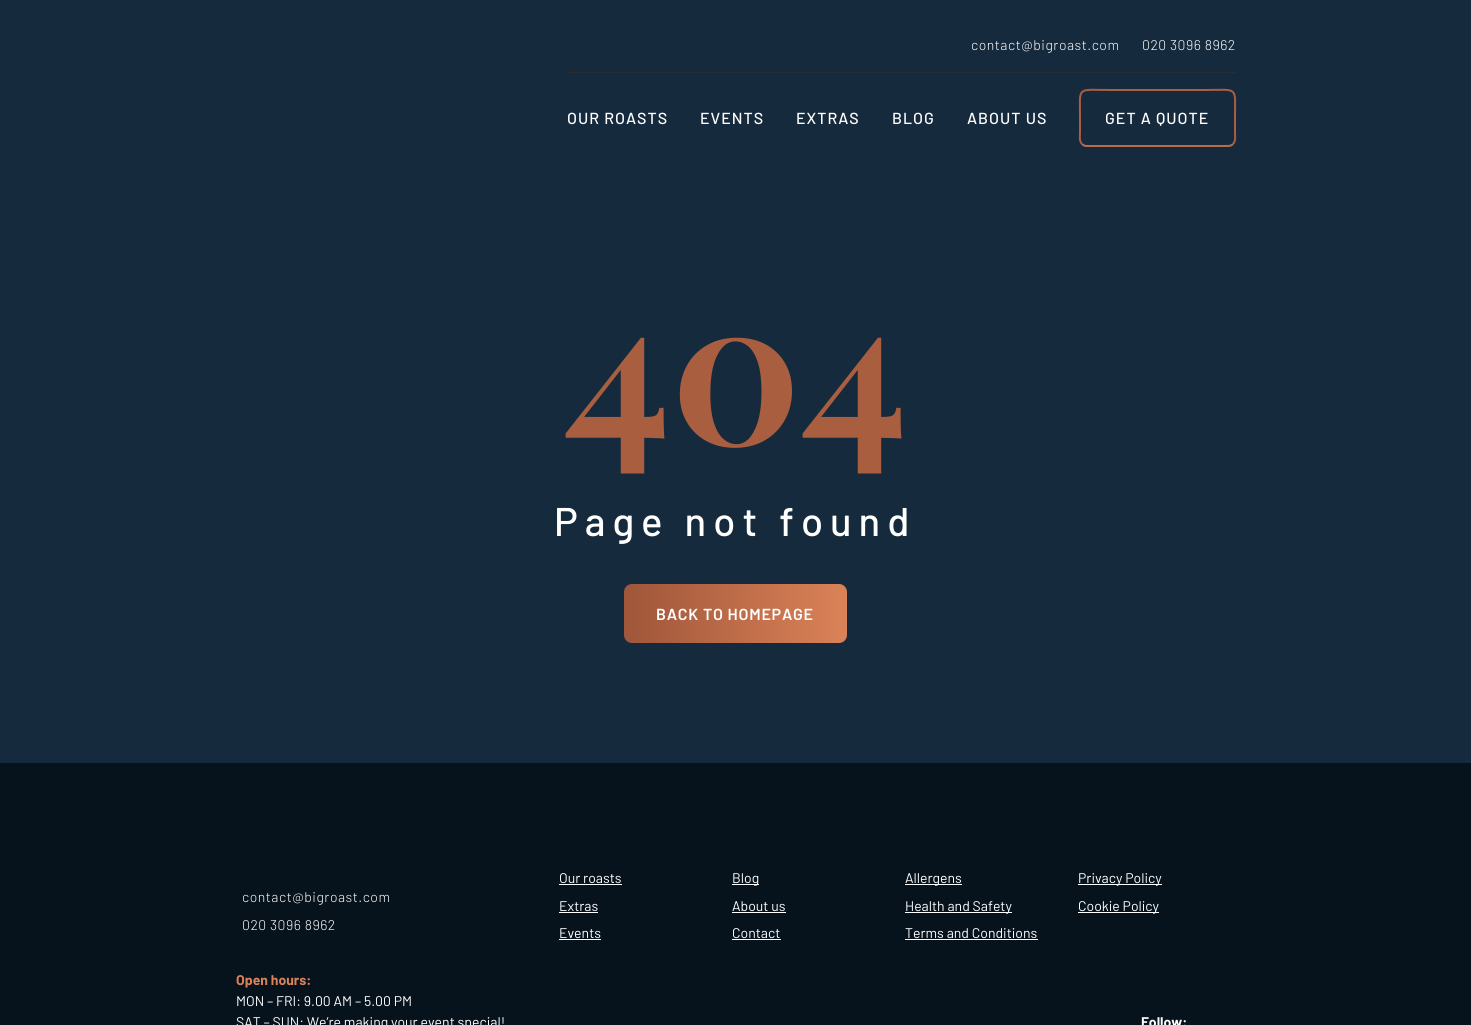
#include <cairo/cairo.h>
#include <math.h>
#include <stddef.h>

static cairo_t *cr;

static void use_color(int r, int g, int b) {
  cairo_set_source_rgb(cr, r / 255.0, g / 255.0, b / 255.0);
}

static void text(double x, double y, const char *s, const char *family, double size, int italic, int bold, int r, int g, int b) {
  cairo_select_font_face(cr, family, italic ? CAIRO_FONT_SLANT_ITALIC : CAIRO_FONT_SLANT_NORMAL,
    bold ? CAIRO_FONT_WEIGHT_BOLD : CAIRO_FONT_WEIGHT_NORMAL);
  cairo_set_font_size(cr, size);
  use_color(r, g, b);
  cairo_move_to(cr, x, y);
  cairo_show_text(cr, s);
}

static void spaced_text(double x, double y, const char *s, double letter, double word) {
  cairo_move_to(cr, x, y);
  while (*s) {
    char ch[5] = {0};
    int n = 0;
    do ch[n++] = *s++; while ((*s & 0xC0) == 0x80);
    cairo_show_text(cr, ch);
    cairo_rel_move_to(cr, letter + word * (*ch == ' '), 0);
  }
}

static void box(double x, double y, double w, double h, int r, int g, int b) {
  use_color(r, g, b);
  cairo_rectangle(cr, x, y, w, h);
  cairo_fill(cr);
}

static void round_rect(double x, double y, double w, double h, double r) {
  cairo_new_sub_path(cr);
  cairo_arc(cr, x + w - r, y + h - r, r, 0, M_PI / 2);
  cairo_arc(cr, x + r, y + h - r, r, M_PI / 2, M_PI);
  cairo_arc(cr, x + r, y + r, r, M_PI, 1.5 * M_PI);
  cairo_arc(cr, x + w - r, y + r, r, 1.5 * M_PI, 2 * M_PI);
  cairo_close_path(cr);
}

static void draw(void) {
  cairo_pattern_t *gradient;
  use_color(22, 42, 61);
  cairo_paint(cr);
  box(567, 72, 669, 1, 44, 44, 48);
  cairo_new_path(cr);
  cairo_move_to(cr, 1233, 144);
  cairo_curve_to(cr, 1231.5, 145.5, 1230, 146, 1228, 146);
  cairo_line_to(cr, 1087, 146);
  cairo_curve_to(cr, 1085, 146, 1083.5, 145.5, 1082, 144);
  use_color(188, 108, 73);
  cairo_stroke(cr);
  cairo_new_path(cr);
  cairo_move_to(cr, 1082, 144);
  cairo_curve_to(cr, 1079, 141, 1080, 136, 1080, 132);
  cairo_line_to(cr, 1080, 118);
  cairo_curve_to(cr, 1080, 85.5, 1076, 90, 1110.5, 90);
  cairo_line_to(cr, 1204.5, 90);
  cairo_curve_to(cr, 1239, 90, 1235, 85.5, 1235, 118);
  cairo_line_to(cr, 1235, 132);
  cairo_curve_to(cr, 1235, 136, 1236, 141, 1233, 144);
  use_color(169, 94, 64);
  cairo_stroke(cr);
  gradient = cairo_pattern_create_linear(624, 614, 1070, 614);
  cairo_pattern_add_color_stop_rgba(gradient, 0, 0.624, 0.337, 0.227, 1);
  cairo_pattern_add_color_stop_rgba(gradient, 0.51, 0.863, 0.514, 0.345, 1);
  cairo_pattern_add_color_stop_rgba(gradient, 1, 0.863, 0.514, 0.345, 1);
  cairo_set_source(cr, gradient);
  cairo_pattern_destroy(gradient);
  round_rect(624, 584, 223, 59, 8);
  cairo_fill(cr);
  box(0, 763, 1471, 262, 6, 18, 28);
  box(559, 884, 63, 1, 255, 255, 255);
  box(732, 884, 27, 1, 255, 255, 255);
  box(905, 884, 57, 1, 255, 255, 255);
  box(1078, 884, 84, 1, 255, 255, 255);
  box(559, 912, 39, 1, 255, 255, 255);
  box(732, 912, 54, 1, 255, 255, 255);
  box(905, 912, 107, 1, 255, 255, 255);
  box(1078, 912, 81, 1, 255, 255, 255);
  box(559, 939, 42, 1, 255, 255, 255);
  box(732, 939, 49, 1, 255, 255, 255);
  box(905, 939, 133, 1, 255, 255, 255);
  cairo_select_font_face(cr, "Barlow Light", CAIRO_FONT_SLANT_NORMAL, CAIRO_FONT_WEIGHT_NORMAL);
  cairo_set_font_size(cr, 14);
  spaced_text(971, 50, "contact@bigroast.com", 0.5, 0);
  spaced_text(1142, 50, "020 3096 8962", 0.5, 0);
  cairo_select_font_face(cr, "Barlow Medium", CAIRO_FONT_SLANT_NORMAL, CAIRO_FONT_WEIGHT_NORMAL);
  cairo_set_font_size(cr, 16);
  spaced_text(567, 124, "OUR ROASTS", 1, 0);
  spaced_text(700, 124, "EVENTS", 1, 0);
  spaced_text(796, 124, "EXTRAS", 1, 0);
  spaced_text(892, 124, "BLOG", 1, 0);
  spaced_text(967, 124, "ABOUT US", 1, 0);
  spaced_text(1105, 124, "GET A QUOTE", 1, 0);
  text(564, 445, "404", "Playfair Display", 202, 0, 1, 169, 94, 64);
  cairo_select_font_face(cr, "Barlow Medium", CAIRO_FONT_SLANT_NORMAL, CAIRO_FONT_WEIGHT_NORMAL);
  cairo_set_font_size(cr, 40);
  use_color(255, 255, 255);
  spaced_text(554, 536, "Page not found", 7, 0);
  cairo_select_font_face(cr, "Barlow SemiBold", CAIRO_FONT_SLANT_NORMAL, CAIRO_FONT_WEIGHT_NORMAL);
  cairo_set_font_size(cr, 16);
  spaced_text(656, 620, "BACK TO HOMEPAGE", 0.75, 0);
  cairo_select_font_face(cr, "Barlow Light", CAIRO_FONT_SLANT_NORMAL, CAIRO_FONT_WEIGHT_NORMAL);
  cairo_set_font_size(cr, 14);
  spaced_text(242, 902, "contact@bigroast.com", 0.5, 0);
  spaced_text(242, 930, "020 3096 8962", 0.5, 0);
  text(559, 883, "Our roasts", "Barlow", 14, 0, 0, 255, 255, 255);
  text(732, 883, "Blog", "Barlow", 14, 0, 0, 255, 255, 255);
  text(905, 883, "Allergens", "Barlow", 14, 0, 0, 255, 255, 255);
  text(1078, 883, "Privacy Policy", "Barlow", 14, 0, 0, 255, 255, 255);
  text(559, 911, "Extras", "Barlow", 14, 0, 0, 255, 255, 255);
  text(732, 911, "About us", "Barlow", 14, 0, 0, 255, 255, 255);
  text(905, 911, "Health and Safety", "Barlow", 14, 0, 0, 255, 255, 255);
  text(1078, 911, "Cookie Policy", "Barlow", 14, 0, 0, 255, 255, 255);
  text(559, 938, "Events", "Barlow", 14, 0, 0, 255, 255, 255);
  text(732, 938, "Contact", "Barlow", 14, 0, 0, 255, 255, 255);
  text(905, 938, "Terms and Conditions", "Barlow", 14, 0, 0, 255, 255, 255);
  text(236, 985, "Open hours:", "Barlow", 14, 0, 1, 218, 130, 88);
  text(236, 1006, "MON – FRI: 9.00 AM – 5.00 PM", "Barlow", 14, 0, 0, 255, 255, 255);
  text(236, 1027, "SAT – SUN: We’re making your event special!", "Barlow", 14, 0, 0, 255, 255, 255);
  text(1141, 1027, "Follow:", "Barlow", 14, 0, 1, 255, 255, 255);
}

int main(void) {
  cairo_surface_t *surface = cairo_image_surface_create(CAIRO_FORMAT_RGB24, 1471, 1025);
  cr = cairo_create(surface);
  cairo_font_options_t *options = cairo_font_options_create();
  cairo_font_options_set_hint_metrics(options, CAIRO_HINT_METRICS_OFF);
  cairo_font_options_set_hint_style(options, CAIRO_HINT_STYLE_NONE);
  cairo_set_font_options(cr, options);
  cairo_set_miter_limit(cr, 4);
  draw();
  cairo_surface_write_to_png(surface, "out.png");
  cairo_font_options_destroy(options);
  cairo_destroy(cr);
  cairo_surface_destroy(surface);
  return 0;
}
